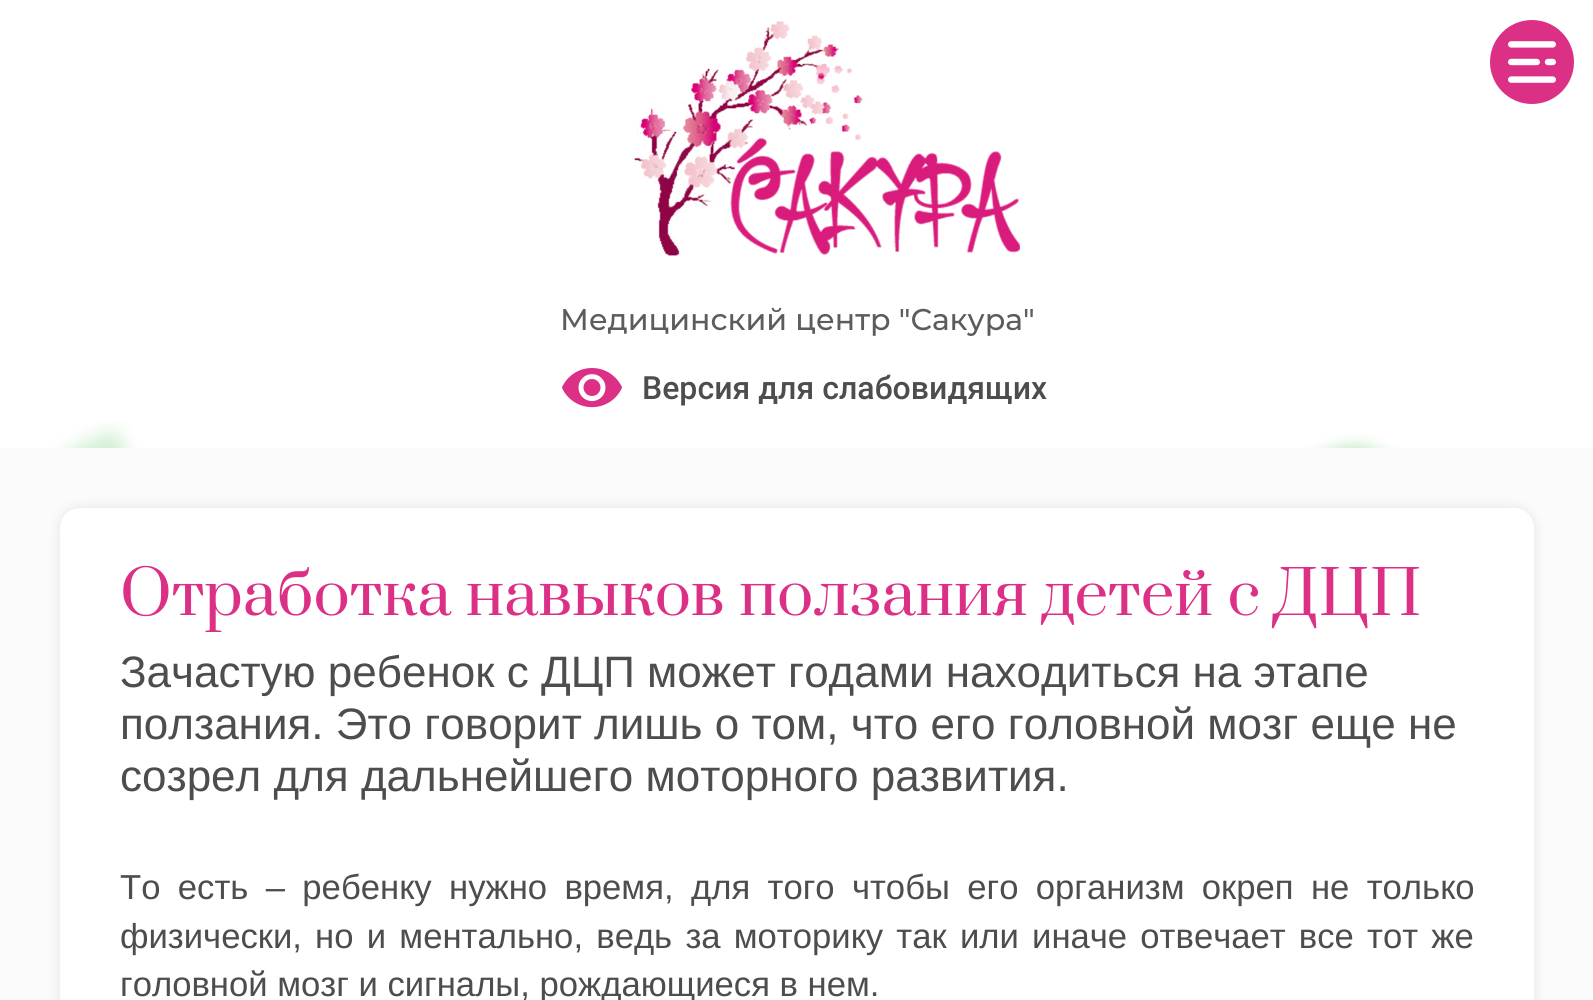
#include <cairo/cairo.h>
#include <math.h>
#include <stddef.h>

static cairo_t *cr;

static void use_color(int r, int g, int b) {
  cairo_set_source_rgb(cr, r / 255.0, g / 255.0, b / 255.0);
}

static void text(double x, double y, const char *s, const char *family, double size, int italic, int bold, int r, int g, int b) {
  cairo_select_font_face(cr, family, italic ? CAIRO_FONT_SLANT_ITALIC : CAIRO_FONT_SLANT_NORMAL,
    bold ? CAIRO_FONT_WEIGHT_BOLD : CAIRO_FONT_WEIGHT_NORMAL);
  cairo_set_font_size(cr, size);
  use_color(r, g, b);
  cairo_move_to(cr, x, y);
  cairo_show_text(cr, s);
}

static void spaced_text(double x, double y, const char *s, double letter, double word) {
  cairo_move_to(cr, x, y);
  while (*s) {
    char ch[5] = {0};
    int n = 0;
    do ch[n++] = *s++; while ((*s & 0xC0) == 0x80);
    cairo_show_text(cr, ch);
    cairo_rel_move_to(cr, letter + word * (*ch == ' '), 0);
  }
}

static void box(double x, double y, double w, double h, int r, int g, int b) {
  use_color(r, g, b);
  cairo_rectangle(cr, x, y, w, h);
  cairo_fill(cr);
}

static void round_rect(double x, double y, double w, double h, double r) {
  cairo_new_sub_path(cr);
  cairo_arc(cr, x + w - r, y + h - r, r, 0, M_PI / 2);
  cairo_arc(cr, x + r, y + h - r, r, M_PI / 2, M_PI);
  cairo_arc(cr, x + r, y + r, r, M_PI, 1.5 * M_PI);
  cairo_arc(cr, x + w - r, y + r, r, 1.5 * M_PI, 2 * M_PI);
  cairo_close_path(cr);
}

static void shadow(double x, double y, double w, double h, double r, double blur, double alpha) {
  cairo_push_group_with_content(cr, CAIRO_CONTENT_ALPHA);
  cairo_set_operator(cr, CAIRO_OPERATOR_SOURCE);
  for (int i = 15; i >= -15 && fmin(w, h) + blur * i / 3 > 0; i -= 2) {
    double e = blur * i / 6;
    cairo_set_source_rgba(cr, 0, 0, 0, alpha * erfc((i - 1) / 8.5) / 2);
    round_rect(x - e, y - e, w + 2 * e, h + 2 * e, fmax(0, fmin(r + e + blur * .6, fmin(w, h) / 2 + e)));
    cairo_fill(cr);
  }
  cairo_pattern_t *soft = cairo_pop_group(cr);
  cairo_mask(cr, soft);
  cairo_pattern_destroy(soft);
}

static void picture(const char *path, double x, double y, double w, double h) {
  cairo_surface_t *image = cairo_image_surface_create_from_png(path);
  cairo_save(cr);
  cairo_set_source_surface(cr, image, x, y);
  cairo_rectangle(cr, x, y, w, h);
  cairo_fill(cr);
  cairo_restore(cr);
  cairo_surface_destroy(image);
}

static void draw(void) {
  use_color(255, 255, 255);
  cairo_paint(cr);
  picture("img_01.png", 35, 420, 1414, 28);
  use_color(220, 48, 135);
  cairo_arc(cr, 1532, 62, 42, 0, 2 * M_PI);
  cairo_fill(cr);
  picture("img_02.png", 1508, 41, 48, 42);
  picture("img_03.png", 634, 21, 386, 236);
  picture("img_04.png", 562, 368, 60, 40);
  box(0, 448, 1593, 552, 251, 251, 251);
  use_color(0, 0, 0);
  shadow(60, 508, 1474, 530, 20, 6, 0.1);
  use_color(255, 255, 255);
  round_rect(60, 508, 1474, 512, 20);
  cairo_fill(cr);
  text(560, 330, "Медицинский центр \"Сакура\"", "Montserrat Medium", 30, 0, 0, 92, 92, 92);
  text(642, 399, "Версия для слабовидящих", "Roboto Medium", 32, 0, 0, 77, 77, 77);
  text(120, 615, "Отработка навыков ползания детей с ДЦП", "Prata", 60, 0, 0, 220, 48, 135);
  text(120, 687, "Зачастую ребенок с ДЦП может годами находиться на этапе", "Liberation Sans", 44, 0, 0, 77, 77, 77);
  text(120, 739, "ползания. Это говорит лишь о том, что его головной мозг еще не", "Liberation Sans", 44, 0, 0, 77, 77, 77);
  text(120, 791, "созрел для дальнейшего моторного развития.", "Liberation Sans", 44, 0, 0, 77, 77, 77);
  cairo_set_font_size(cr, 34.65);
  spaced_text(120, 899, "То есть – ребенку нужно время, для того чтобы его организм окреп не только", 0, 7.75);
  spaced_text(120, 948, "физически, но и ментально, ведь за моторику так или иначе отвечает все тот же", 0, 3.6);
  text(120, 996, "головной мозг и сигналы, рождающиеся в нем.", "Liberation Sans", 34.65, 0, 0, 77, 77, 77);
}

int main(void) {
  cairo_surface_t *surface = cairo_image_surface_create(CAIRO_FORMAT_RGB24, 1593, 1000);
  cr = cairo_create(surface);
  cairo_font_options_t *options = cairo_font_options_create();
  cairo_font_options_set_hint_metrics(options, CAIRO_HINT_METRICS_OFF);
  cairo_font_options_set_hint_style(options, CAIRO_HINT_STYLE_NONE);
  cairo_set_font_options(cr, options);
  cairo_set_miter_limit(cr, 4);
  draw();
  cairo_surface_write_to_png(surface, "out.png");
  cairo_font_options_destroy(options);
  cairo_destroy(cr);
  cairo_surface_destroy(surface);
  return 0;
}
